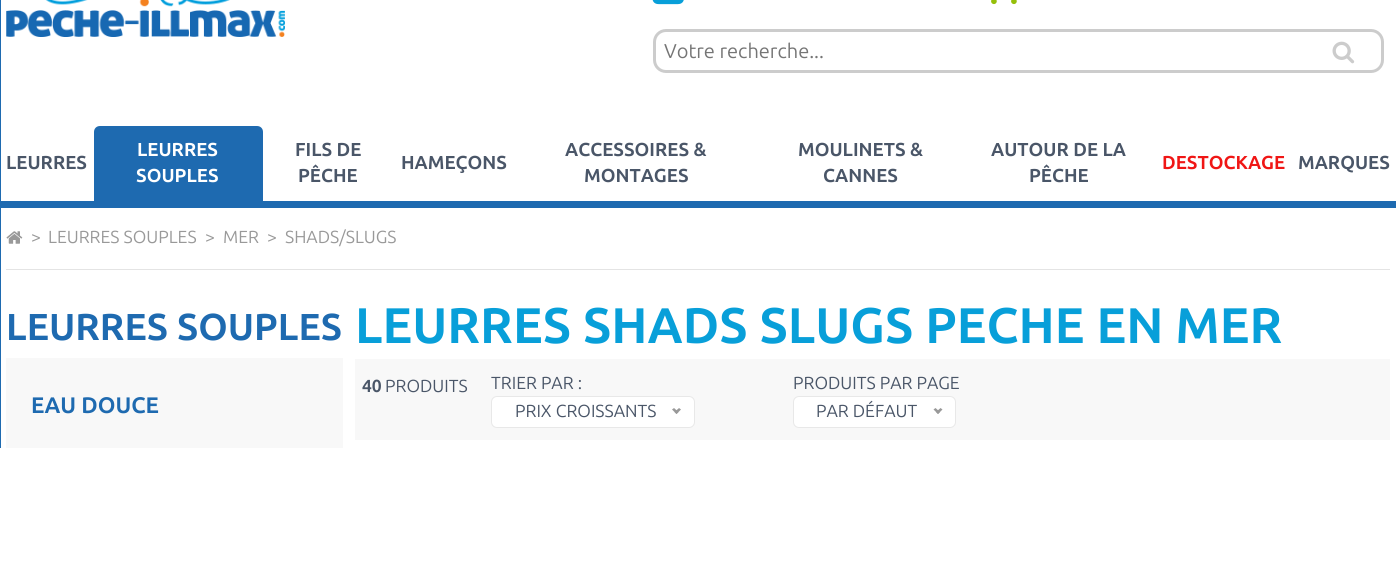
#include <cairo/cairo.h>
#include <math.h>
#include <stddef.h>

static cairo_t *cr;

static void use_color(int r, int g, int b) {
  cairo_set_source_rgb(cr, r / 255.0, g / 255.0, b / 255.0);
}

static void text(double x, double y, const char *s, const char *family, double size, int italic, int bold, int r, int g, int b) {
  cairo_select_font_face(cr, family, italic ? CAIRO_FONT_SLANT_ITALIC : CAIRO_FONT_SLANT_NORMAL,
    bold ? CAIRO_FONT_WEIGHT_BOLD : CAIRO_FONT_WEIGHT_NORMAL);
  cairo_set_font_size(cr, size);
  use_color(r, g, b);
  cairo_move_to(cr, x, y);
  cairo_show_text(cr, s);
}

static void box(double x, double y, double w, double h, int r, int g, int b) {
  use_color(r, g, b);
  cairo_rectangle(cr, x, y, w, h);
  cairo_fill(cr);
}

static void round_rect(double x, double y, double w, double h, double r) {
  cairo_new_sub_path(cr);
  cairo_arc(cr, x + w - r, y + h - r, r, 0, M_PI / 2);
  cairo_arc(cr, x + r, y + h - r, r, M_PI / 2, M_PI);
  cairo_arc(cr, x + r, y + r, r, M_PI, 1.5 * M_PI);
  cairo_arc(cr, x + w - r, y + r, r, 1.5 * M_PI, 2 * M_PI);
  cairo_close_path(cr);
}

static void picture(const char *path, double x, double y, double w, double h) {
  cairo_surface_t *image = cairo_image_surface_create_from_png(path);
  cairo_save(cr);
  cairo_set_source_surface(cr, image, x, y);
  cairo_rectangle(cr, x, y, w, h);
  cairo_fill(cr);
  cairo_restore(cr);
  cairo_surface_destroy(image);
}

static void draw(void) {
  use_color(255, 255, 255);
  cairo_paint(cr);
  box(0, 201, 1396, 7, 30, 106, 176);
  box(0, 0, 1, 448, 30, 106, 176);
  picture("img_01.png", 6, 0, 279, 37);
  picture("img_02.png", 652, 0, 32, 5);
  picture("img_03.png", 991, 0, 26, 5);
  round_rect(654.5, 30.5, 728, 41, 11.5);
  use_color(204, 204, 204);
  cairo_set_line_width(cr, 3);
  cairo_stroke(cr);
  picture("img_04.png", 1332, 41, 23, 23);
  use_color(30, 106, 176);
  cairo_new_path(cr);
  cairo_move_to(cr, 100, 126);
  cairo_line_to(cr, 257, 126);
  cairo_curve_to(cr, 260.5, 126, 263, 128.5, 263, 132);
  cairo_line_to(cr, 263, 201);
  cairo_line_to(cr, 94, 201);
  cairo_line_to(cr, 94, 132);
  cairo_curve_to(cr, 94, 128.5, 96.5, 126, 100, 126);
  cairo_close_path(cr);
  cairo_fill(cr);
  box(6, 269, 1384, 1, 228, 228, 228);
  picture("img_05.png", 6, 231, 17, 13);
  box(6, 358, 337, 90, 248, 248, 248);
  box(355, 359, 1035, 81, 248, 248, 248);
  use_color(255, 255, 255);
  round_rect(491.5, 396.5, 203, 31, 5.5);
  cairo_fill_preserve(cr);
  use_color(232, 232, 232);
  cairo_set_line_width(cr, 1);
  cairo_stroke(cr);
  use_color(153, 153, 153);
  cairo_new_path(cr);
  cairo_move_to(cr, 679, 408);
  cairo_line_to(cr, 681, 409.5);
  cairo_line_to(cr, 676.5, 414);
  cairo_line_to(cr, 674.5, 412);
  cairo_close_path(cr);
  cairo_fill(cr);
  cairo_new_path(cr);
  cairo_move_to(cr, 674, 408);
  cairo_line_to(cr, 678.5, 412);
  cairo_line_to(cr, 676.5, 414);
  cairo_line_to(cr, 672, 409.5);
  cairo_close_path(cr);
  cairo_fill(cr);
  use_color(255, 255, 255);
  round_rect(793.5, 396.5, 162, 31, 5.5);
  cairo_fill_preserve(cr);
  use_color(232, 232, 232);
  cairo_stroke(cr);
  use_color(153, 153, 153);
  cairo_new_path(cr);
  cairo_move_to(cr, 940.5, 408);
  cairo_line_to(cr, 942.5, 409.5);
  cairo_line_to(cr, 938, 414);
  cairo_line_to(cr, 936, 412);
  cairo_close_path(cr);
  cairo_fill(cr);
  cairo_new_path(cr);
  cairo_move_to(cr, 935.5, 408);
  cairo_line_to(cr, 940, 412);
  cairo_line_to(cr, 938, 414);
  cairo_line_to(cr, 933.5, 409.5);
  cairo_close_path(cr);
  cairo_fill(cr);
  text(664, 58, "Votre recherche...", "Ubuntu", 20, 0, 0, 117, 117, 117);
  text(6, 169, "LEURRES", "Ubuntu", 18.75, 0, 1, 74, 86, 104);
  text(137, 156, "LEURRES", "Ubuntu", 18.75, 0, 1, 255, 255, 255);
  text(136, 182, "SOUPLES", "Ubuntu", 18.75, 0, 1, 255, 255, 255);
  text(295, 156, "FILS DE", "Ubuntu", 18.75, 0, 1, 74, 86, 104);
  text(298, 182, "PÊCHE", "Ubuntu", 18.75, 0, 1, 74, 86, 104);
  text(401, 169, "HAMEÇONS", "Ubuntu", 18.75, 0, 1, 74, 86, 104);
  text(565, 156, "ACCESSOIRES &", "Ubuntu", 18.75, 0, 1, 74, 86, 104);
  text(584, 182, "MONTAGES", "Ubuntu", 18.75, 0, 1, 74, 86, 104);
  text(798, 156, "MOULINETS &", "Ubuntu", 18.75, 0, 1, 74, 86, 104);
  text(823, 182, "CANNES", "Ubuntu", 18.75, 0, 1, 74, 86, 104);
  text(991, 156, "AUTOUR DE LA", "Ubuntu", 18.75, 0, 1, 74, 86, 104);
  text(1029, 182, "PÊCHE", "Ubuntu", 18.75, 0, 1, 74, 86, 104);
  text(1162, 169, "DESTOCKAGE", "Ubuntu", 18.75, 0, 1, 240, 22, 21);
  text(1298, 169, "MARQUES", "Ubuntu", 18.75, 0, 1, 74, 86, 104);
  text(31, 243, ">", "Ubuntu", 17.5, 0, 0, 153, 153, 153);
  text(48, 243, "LEURRES SOUPLES", "Ubuntu", 17.5, 0, 0, 153, 153, 153);
  text(205, 243, ">", "Ubuntu", 17.5, 0, 0, 153, 153, 153);
  text(223, 243, "MER", "Ubuntu", 17.5, 0, 0, 153, 153, 153);
  text(267, 243, ">", "Ubuntu", 17.5, 0, 0, 153, 153, 153);
  text(285, 243, "SHADS/SLUGS", "Ubuntu", 17.5, 0, 0, 153, 153, 153);
  text(6, 340, "LEURRES SOUPLES", "Ubuntu", 37.5, 0, 1, 30, 106, 176);
  text(31, 413, "EAU DOUCE", "Ubuntu", 22.5, 0, 1, 30, 106, 176);
  text(355, 343, "LEURRES SHADS SLUGS PECHE EN MER", "Ubuntu", 50, 0, 1, 8, 159, 217);
  text(362, 392, "40", "Ubuntu", 17.5, 0, 1, 74, 86, 104);
  text(385, 392, "PRODUITS", "Ubuntu", 17.5, 0, 0, 74, 86, 104);
  text(491, 389, "TRIER PAR :", "Ubuntu", 17.5, 0, 0, 74, 86, 104);
  text(515, 417, "PRIX CROISSANTS", "Ubuntu", 17.5, 0, 0, 74, 86, 104);
  text(793, 389, "PRODUITS PAR PAGE", "Ubuntu", 17.5, 0, 0, 74, 86, 104);
  text(816, 417, "PAR DÉFAUT", "Ubuntu", 17.5, 0, 0, 74, 86, 104);
}

int main(void) {
  cairo_surface_t *surface = cairo_image_surface_create(CAIRO_FORMAT_RGB24, 1396, 579);
  cr = cairo_create(surface);
  cairo_font_options_t *options = cairo_font_options_create();
  cairo_font_options_set_hint_metrics(options, CAIRO_HINT_METRICS_OFF);
  cairo_font_options_set_hint_style(options, CAIRO_HINT_STYLE_NONE);
  cairo_set_font_options(cr, options);
  cairo_set_miter_limit(cr, 4);
  draw();
  cairo_surface_write_to_png(surface, "out.png");
  cairo_font_options_destroy(options);
  cairo_destroy(cr);
  cairo_surface_destroy(surface);
  return 0;
}
